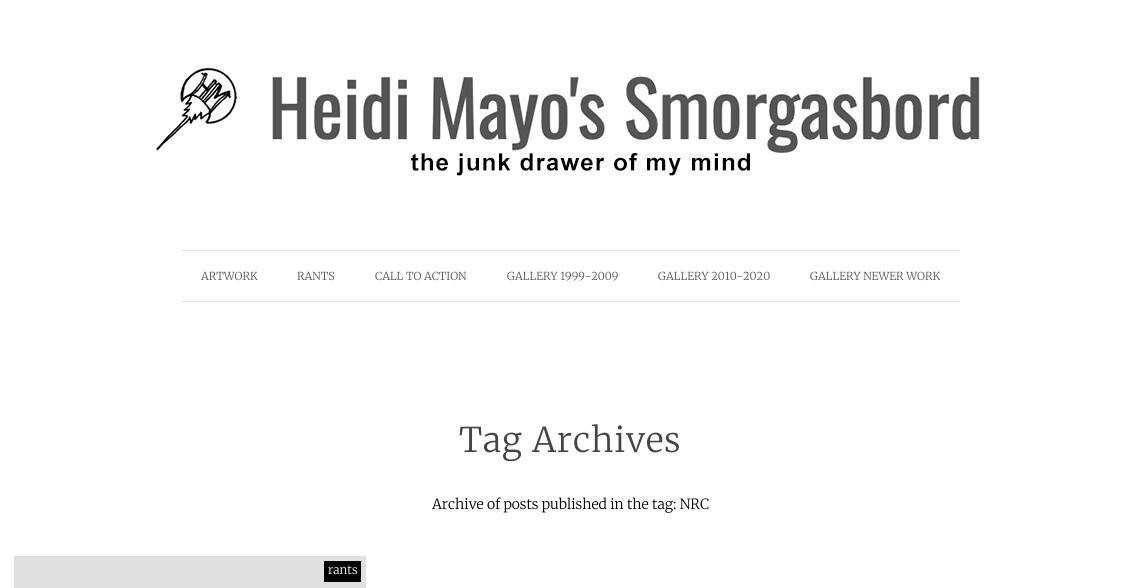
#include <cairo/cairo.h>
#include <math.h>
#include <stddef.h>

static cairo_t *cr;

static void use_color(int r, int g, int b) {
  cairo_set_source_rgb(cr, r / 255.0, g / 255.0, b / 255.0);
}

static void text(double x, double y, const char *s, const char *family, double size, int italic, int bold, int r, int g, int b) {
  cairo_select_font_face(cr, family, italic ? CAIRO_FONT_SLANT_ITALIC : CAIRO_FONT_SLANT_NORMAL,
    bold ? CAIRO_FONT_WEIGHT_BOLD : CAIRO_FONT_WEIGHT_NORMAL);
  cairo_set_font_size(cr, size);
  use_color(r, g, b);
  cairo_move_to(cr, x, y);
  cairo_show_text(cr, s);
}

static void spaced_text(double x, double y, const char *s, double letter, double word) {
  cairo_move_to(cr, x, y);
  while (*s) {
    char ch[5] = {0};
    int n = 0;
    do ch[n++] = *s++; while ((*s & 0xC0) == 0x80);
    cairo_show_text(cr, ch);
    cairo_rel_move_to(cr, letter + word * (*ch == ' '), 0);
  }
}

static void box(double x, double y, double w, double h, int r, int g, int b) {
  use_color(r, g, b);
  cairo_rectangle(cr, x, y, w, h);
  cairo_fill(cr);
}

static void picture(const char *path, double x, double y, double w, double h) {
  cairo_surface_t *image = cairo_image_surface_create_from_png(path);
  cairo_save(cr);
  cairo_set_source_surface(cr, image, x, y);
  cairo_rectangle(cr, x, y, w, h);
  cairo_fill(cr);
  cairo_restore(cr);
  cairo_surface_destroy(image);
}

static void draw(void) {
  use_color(255, 255, 255);
  cairo_paint(cr);
  picture("img_01.png", 156, 67, 824, 109);
  box(181, 250, 779, 1, 231, 231, 231);
  box(181, 301, 779, 1, 231, 231, 231);
  box(14, 556, 352, 32, 224, 224, 224);
  box(324, 561, 37, 21, 0, 0, 0);
  text(201, 280, "ARTWORK", "Merriweather Light", 11, 0, 0, 85, 85, 85);
  text(297, 280, "RANTS", "Merriweather Light", 11, 0, 0, 85, 85, 85);
  text(375, 280, "CALL TO ACTION", "Merriweather Light", 11, 0, 0, 85, 85, 85);
  text(507, 280, "GALLERY 1999-2009", "Merriweather Light", 11, 0, 0, 85, 85, 85);
  text(658, 280, "GALLERY 2010-2020", "Merriweather Light", 11, 0, 0, 85, 85, 85);
  text(810, 280, "GALLERY NEWER WORK", "Merriweather Light", 11, 0, 0, 85, 85, 85);
  cairo_set_font_size(cr, 34);
  use_color(68, 68, 68);
  spaced_text(459, 452, "Tag Archives", 1, 0);
  text(432, 509, "Archive of posts published in the tag: NRC", "Merriweather Light", 14, 0, 0, 0, 0, 0);
  text(328, 574, "rants", "Merriweather Light", 12, 0, 0, 255, 255, 255);
}

int main(void) {
  cairo_surface_t *surface = cairo_image_surface_create(CAIRO_FORMAT_RGB24, 1141, 588);
  cr = cairo_create(surface);
  cairo_font_options_t *options = cairo_font_options_create();
  cairo_font_options_set_hint_metrics(options, CAIRO_HINT_METRICS_OFF);
  cairo_font_options_set_hint_style(options, CAIRO_HINT_STYLE_NONE);
  cairo_set_font_options(cr, options);
  cairo_set_miter_limit(cr, 4);
  draw();
  cairo_surface_write_to_png(surface, "out.png");
  cairo_font_options_destroy(options);
  cairo_destroy(cr);
  cairo_surface_destroy(surface);
  return 0;
}
